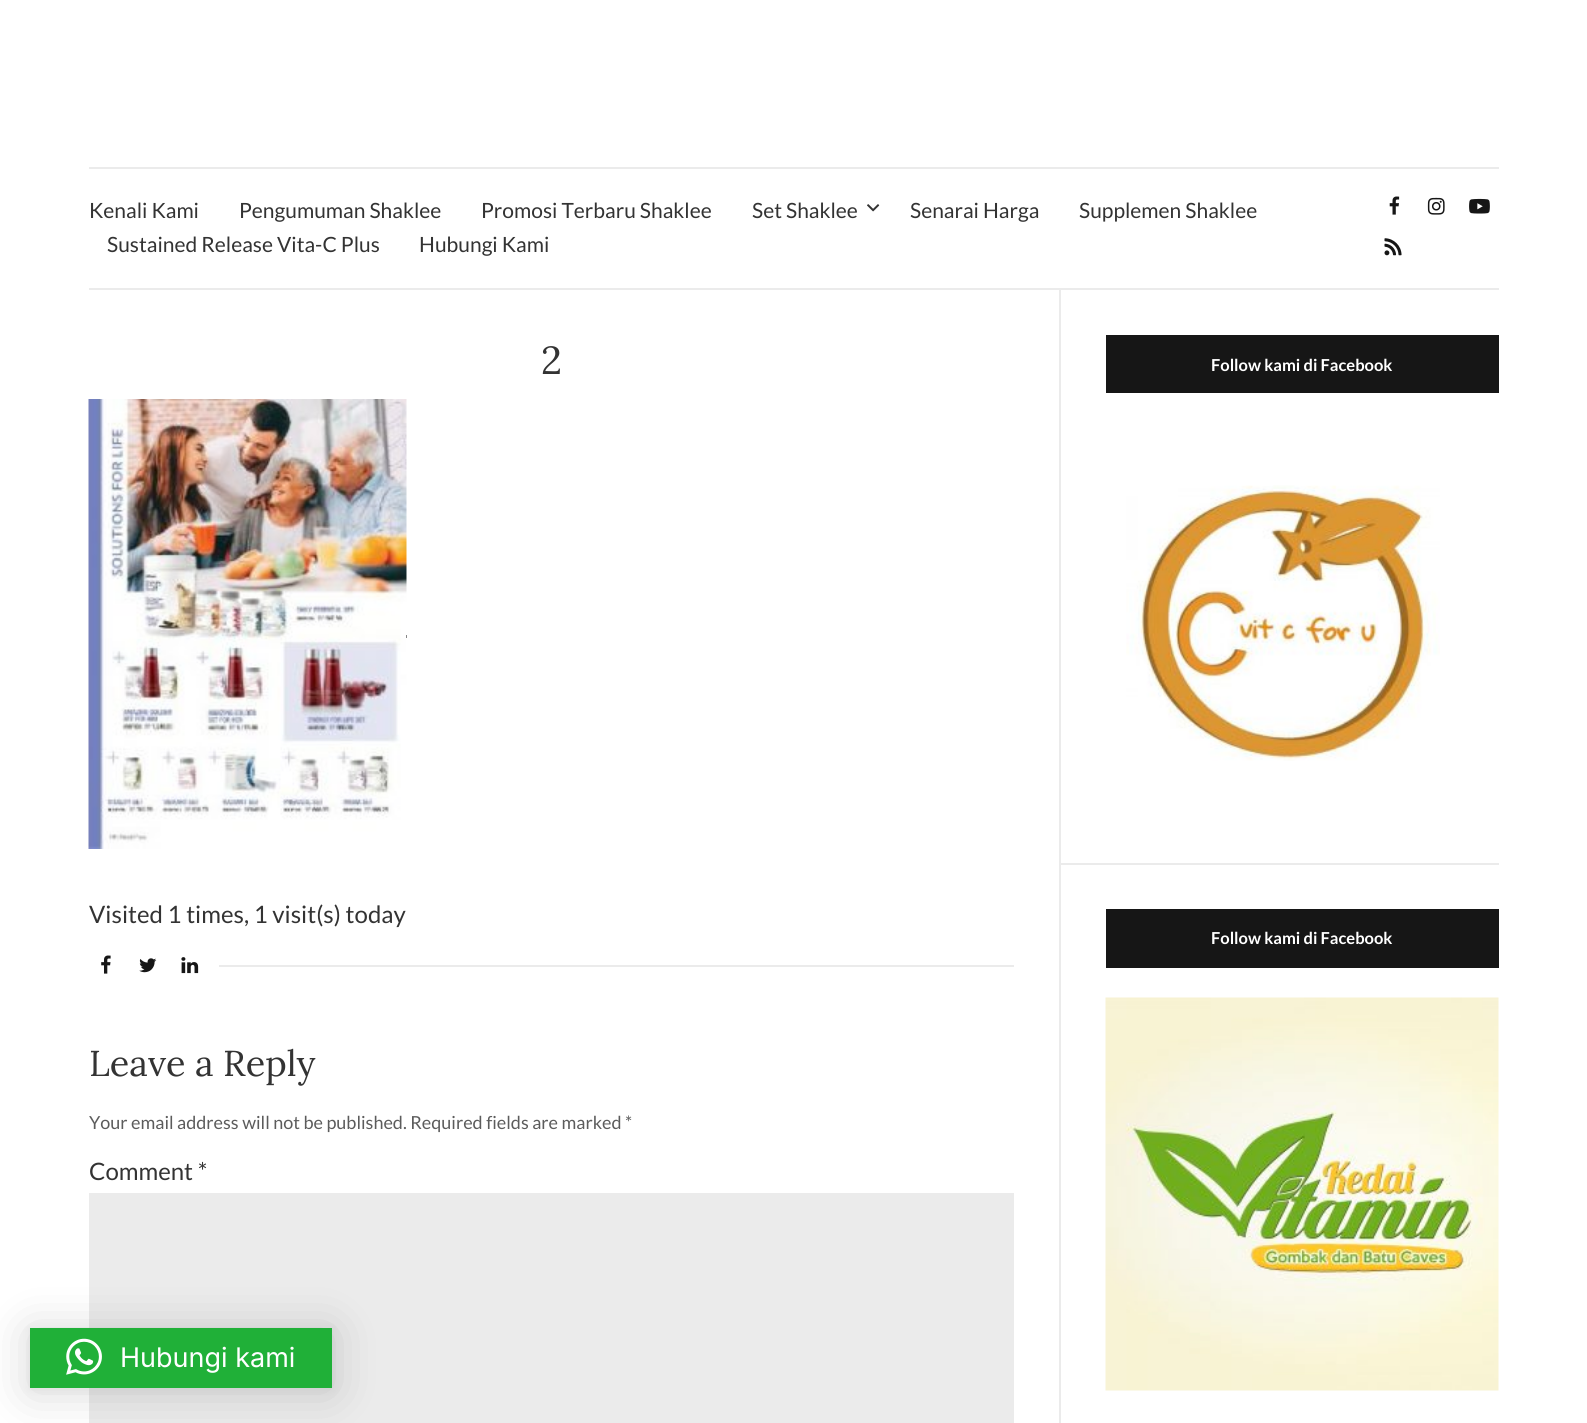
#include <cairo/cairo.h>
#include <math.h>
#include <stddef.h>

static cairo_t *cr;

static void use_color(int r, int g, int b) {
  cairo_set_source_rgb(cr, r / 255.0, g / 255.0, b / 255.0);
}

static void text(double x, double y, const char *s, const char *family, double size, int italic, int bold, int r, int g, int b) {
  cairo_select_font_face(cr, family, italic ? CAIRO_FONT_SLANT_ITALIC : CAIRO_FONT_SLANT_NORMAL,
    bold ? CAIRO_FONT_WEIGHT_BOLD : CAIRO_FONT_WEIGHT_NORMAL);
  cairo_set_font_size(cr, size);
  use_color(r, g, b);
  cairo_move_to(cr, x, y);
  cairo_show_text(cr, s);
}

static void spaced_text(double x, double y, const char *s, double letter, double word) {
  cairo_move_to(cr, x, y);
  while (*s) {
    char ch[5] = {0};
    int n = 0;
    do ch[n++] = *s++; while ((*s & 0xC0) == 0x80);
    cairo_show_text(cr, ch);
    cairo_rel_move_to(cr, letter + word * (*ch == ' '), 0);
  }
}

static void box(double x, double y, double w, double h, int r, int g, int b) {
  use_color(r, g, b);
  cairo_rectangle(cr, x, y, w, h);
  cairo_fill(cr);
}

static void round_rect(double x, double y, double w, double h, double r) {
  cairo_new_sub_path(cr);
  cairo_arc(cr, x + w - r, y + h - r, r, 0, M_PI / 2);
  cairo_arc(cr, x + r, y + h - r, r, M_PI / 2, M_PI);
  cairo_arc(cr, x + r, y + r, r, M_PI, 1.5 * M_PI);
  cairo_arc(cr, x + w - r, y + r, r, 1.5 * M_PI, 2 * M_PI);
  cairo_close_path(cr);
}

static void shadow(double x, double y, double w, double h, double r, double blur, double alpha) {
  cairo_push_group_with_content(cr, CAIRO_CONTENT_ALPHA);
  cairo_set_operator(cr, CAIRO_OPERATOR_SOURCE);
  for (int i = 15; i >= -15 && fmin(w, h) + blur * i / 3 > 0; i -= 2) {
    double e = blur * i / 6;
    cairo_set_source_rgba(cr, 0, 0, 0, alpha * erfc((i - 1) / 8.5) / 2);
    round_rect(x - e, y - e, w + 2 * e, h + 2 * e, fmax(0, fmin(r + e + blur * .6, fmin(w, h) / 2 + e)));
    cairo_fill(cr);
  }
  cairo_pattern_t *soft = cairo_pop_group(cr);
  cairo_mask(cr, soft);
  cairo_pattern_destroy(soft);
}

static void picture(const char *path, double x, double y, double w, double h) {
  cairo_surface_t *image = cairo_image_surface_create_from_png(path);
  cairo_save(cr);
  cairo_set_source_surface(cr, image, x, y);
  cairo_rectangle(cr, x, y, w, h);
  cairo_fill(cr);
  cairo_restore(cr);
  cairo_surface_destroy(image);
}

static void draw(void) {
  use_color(255, 255, 255);
  cairo_paint(cr);
  box(89, 167, 1410, 2, 235, 235, 235);
  box(89, 288, 1410, 2, 235, 235, 235);
  picture("img_01.png", 867, 204, 13, 8);
  picture("img_02.png", 1389, 196, 11, 19);
  picture("img_03.png", 1427, 197, 18, 18);
  picture("img_04.png", 1469, 198, 21, 16);
  picture("img_05.png", 1384, 238, 18, 18);
  box(406, 635, 1, 3, 17, 17, 17);
  picture("img_06.png", 88, 399, 319, 450);
  picture("img_07.png", 101, 955, 10, 19);
  picture("img_08.png", 139, 958, 18, 15);
  picture("img_09.png", 181, 957, 18, 17);
  box(219, 965, 795, 2, 235, 235, 235);
  box(89, 1193, 925, 230, 235, 235, 235);
  box(1059, 290, 2, 1133, 235, 235, 235);
  box(1061, 863, 438, 2, 235, 235, 235);
  box(1106, 335, 393, 58, 22, 22, 22);
  picture("img_10.png", 1126, 485, 314, 276);
  box(1106, 909, 393, 59, 22, 22, 22);
  picture("img_11.png", 1105, 997, 394, 394);
  use_color(0, 0, 0);
  shadow(30, 1331, 302, 60, 0, 24, 0.16);
  shadow(30, 1329, 302, 60, 0, 4.5, 0.06);
  box(30, 1328, 302, 60, 32, 176, 56);
  picture("img_12.png", 66, 1338, 36, 37);
  text(89, 218, "Kenali Kami", "Lato", 21, 0, 0, 51, 51, 51);
  text(239, 218, "Pengumuman Shaklee", "Lato", 21, 0, 0, 51, 51, 51);
  text(481, 218, "Promosi Terbaru Shaklee", "Lato", 21, 0, 0, 51, 51, 51);
  text(752, 218, "Set Shaklee", "Lato", 21, 0, 0, 51, 51, 51);
  text(910, 218, "Senarai Harga", "Lato", 21, 0, 0, 51, 51, 51);
  text(1079, 218, "Supplemen Shaklee", "Lato", 21, 0, 0, 51, 51, 51);
  text(107, 252, "Sustained Release Vita-C Plus", "Lato", 21, 0, 0, 51, 51, 51);
  text(419, 252, "Hubungi Kami", "Lato", 21, 0, 0, 51, 51, 51);
  cairo_select_font_face(cr, "Lora", CAIRO_FONT_SLANT_NORMAL, CAIRO_FONT_WEIGHT_NORMAL);
  cairo_set_font_size(cr, 39);
  spaced_text(541, 374, "2", -1, 0);
  text(89, 923, "Visited 1 times, 1 visit(s) today", "Lato", 24, 0, 0, 51, 51, 51);
  text(89, 1076, "Leave a Reply", "Lora", 36, 0, 0, 51, 51, 51);
  text(89, 1129, "Your email address will not be published. Required fields are marked *", "Lato", 18, 0, 0, 92, 92, 92);
  text(89, 1180, "Comment *", "Lato", 24, 0, 0, 51, 51, 51);
  text(1211, 371, "Follow kami di Facebook", "Lato", 16.5, 0, 1, 255, 255, 255);
  text(1211, 944, "Follow kami di Facebook", "Lato", 16.5, 0, 1, 255, 255, 255);
  text(120, 1367, "Hubungi kami", "Inter", 27, 0, 0, 255, 255, 255);
}

int main(void) {
  cairo_surface_t *surface = cairo_image_surface_create(CAIRO_FORMAT_RGB24, 1587, 1423);
  cr = cairo_create(surface);
  cairo_font_options_t *options = cairo_font_options_create();
  cairo_font_options_set_hint_metrics(options, CAIRO_HINT_METRICS_OFF);
  cairo_font_options_set_hint_style(options, CAIRO_HINT_STYLE_NONE);
  cairo_set_font_options(cr, options);
  cairo_set_miter_limit(cr, 4);
  draw();
  cairo_surface_write_to_png(surface, "out.png");
  cairo_font_options_destroy(options);
  cairo_destroy(cr);
  cairo_surface_destroy(surface);
  return 0;
}
